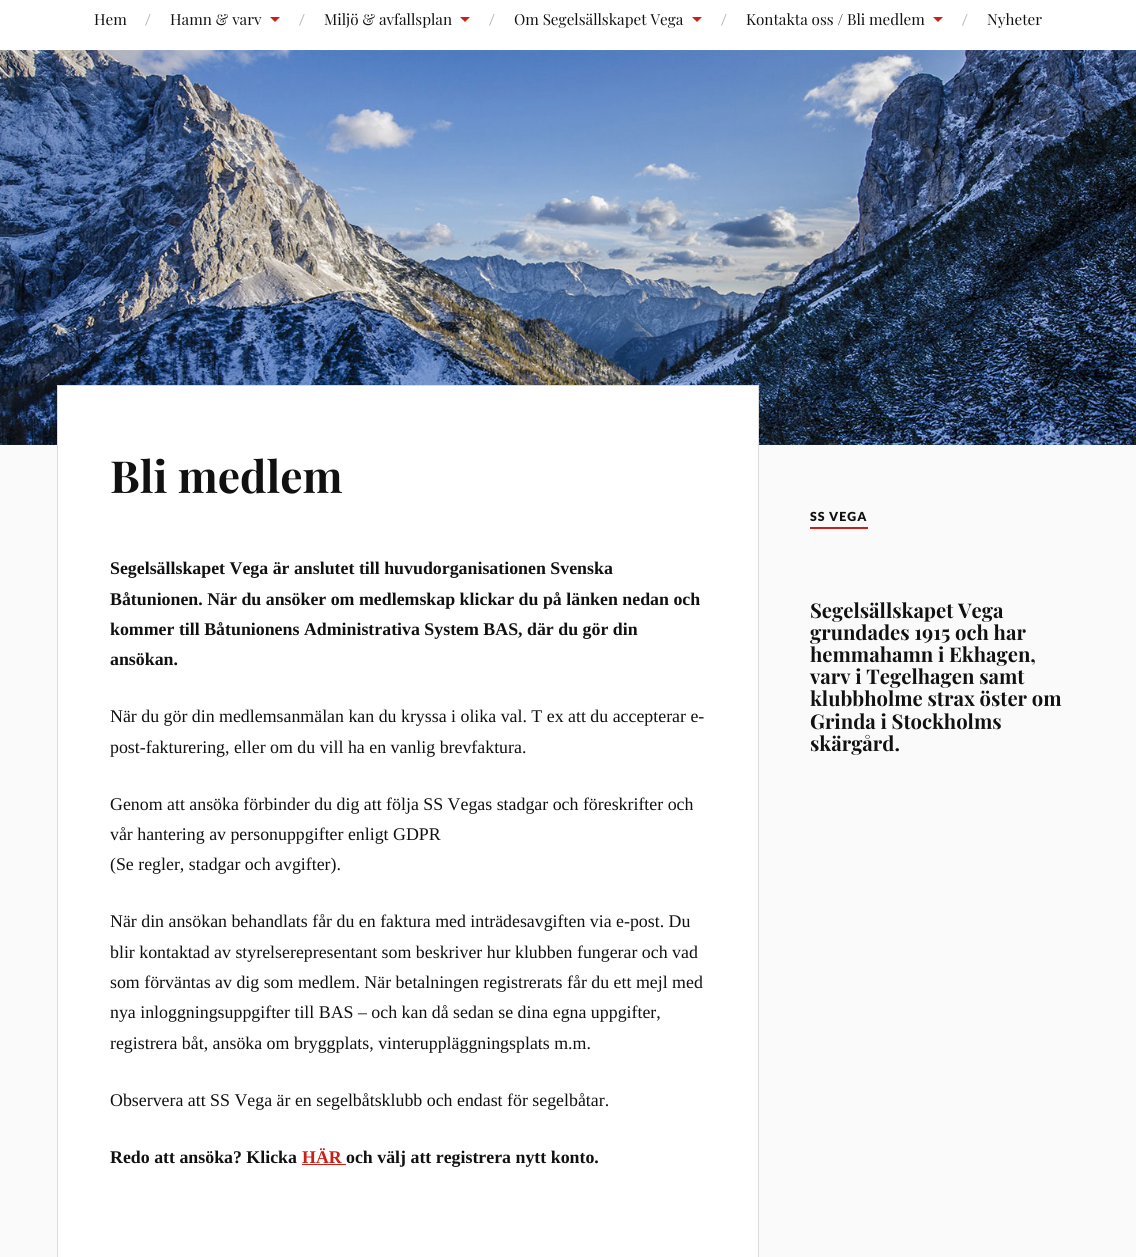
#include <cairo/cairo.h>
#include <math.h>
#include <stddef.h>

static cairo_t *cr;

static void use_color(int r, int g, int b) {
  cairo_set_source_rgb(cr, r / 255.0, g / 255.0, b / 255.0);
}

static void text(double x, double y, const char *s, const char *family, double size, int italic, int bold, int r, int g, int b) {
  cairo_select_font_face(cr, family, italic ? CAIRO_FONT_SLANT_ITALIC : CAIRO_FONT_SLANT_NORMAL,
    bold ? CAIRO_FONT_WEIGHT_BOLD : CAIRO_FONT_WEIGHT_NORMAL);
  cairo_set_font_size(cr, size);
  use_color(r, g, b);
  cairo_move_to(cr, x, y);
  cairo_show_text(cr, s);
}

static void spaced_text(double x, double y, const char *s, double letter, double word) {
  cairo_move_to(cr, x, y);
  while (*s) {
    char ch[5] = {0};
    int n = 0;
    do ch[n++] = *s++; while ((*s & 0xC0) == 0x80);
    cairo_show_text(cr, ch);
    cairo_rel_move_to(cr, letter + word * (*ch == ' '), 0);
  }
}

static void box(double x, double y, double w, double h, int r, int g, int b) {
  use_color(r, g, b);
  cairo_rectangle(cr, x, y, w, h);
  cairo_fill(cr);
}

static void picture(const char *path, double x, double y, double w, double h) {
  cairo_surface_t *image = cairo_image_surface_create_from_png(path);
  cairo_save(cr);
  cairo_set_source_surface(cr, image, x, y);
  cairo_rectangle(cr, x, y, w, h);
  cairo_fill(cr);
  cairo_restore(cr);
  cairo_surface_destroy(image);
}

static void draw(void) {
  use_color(250, 250, 250);
  cairo_paint(cr);
  box(0, 0, 1136, 50, 255, 255, 255);
  use_color(202, 32, 23);
  cairo_new_path(cr);
  cairo_move_to(cr, 270, 17);
  cairo_line_to(cr, 280, 17);
  cairo_line_to(cr, 275, 22);
  cairo_close_path(cr);
  cairo_fill(cr);
  cairo_new_path(cr);
  cairo_move_to(cr, 460, 17);
  cairo_line_to(cr, 470, 17);
  cairo_line_to(cr, 465, 22);
  cairo_close_path(cr);
  cairo_fill(cr);
  cairo_new_path(cr);
  cairo_move_to(cr, 692, 17);
  cairo_line_to(cr, 702, 17);
  cairo_line_to(cr, 697, 22);
  cairo_close_path(cr);
  cairo_fill(cr);
  cairo_new_path(cr);
  cairo_move_to(cr, 933, 17);
  cairo_line_to(cr, 943, 17);
  cairo_line_to(cr, 938, 22);
  cairo_close_path(cr);
  cairo_fill(cr);
  picture("img_01.png", 0, 50, 1136, 395);
  use_color(255, 255, 255);
  cairo_rectangle(cr, 57.5, 385.5, 701, 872);
  cairo_fill_preserve(cr);
  use_color(221, 221, 221);
  cairo_set_line_width(cr, 1);
  cairo_stroke(cr);
  box(302, 1164, 44, 1, 202, 32, 23);
  box(810, 527, 58, 2, 202, 32, 23);
  text(94, 25, "Hem", "Playfair Display", 15.25, 0, 0, 17, 17, 17);
  text(145, 25, "/", "Lato", 15, 0, 0, 187, 187, 187);
  text(170, 25, "Hamn & varv", "Playfair Display", 15.25, 0, 0, 17, 17, 17);
  text(299, 25, "/", "Lato", 15, 0, 0, 187, 187, 187);
  text(324, 25, "Miljö & avfallsplan", "Playfair Display", 15.25, 0, 0, 17, 17, 17);
  text(489, 25, "/", "Lato", 15, 0, 0, 187, 187, 187);
  text(514, 25, "Om Segelsällskapet Vega", "Playfair Display", 15.25, 0, 0, 17, 17, 17);
  text(721, 25, "/", "Lato", 15, 0, 0, 187, 187, 187);
  text(746, 25, "Kontakta oss / Bli medlem", "Playfair Display", 15.25, 0, 0, 17, 17, 17);
  text(962, 25, "/", "Lato", 15, 0, 0, 187, 187, 187);
  text(987, 25, "Nyheter", "Playfair Display", 15.25, 0, 0, 17, 17, 17);
  text(110, 493, "Bli medlem", "Playfair Display", 44.25, 0, 1, 17, 17, 17);
  text(110, 574, "Segelsällskapet Vega är anslutet till huvudorganisationen Svenska", "Liberation Serif", 17.85, 0, 1, 17, 17, 17);
  text(110, 605, "Båtunionen. När du ansöker om medlemskap klickar du på länken nedan och", "Liberation Serif", 17.85, 0, 1, 17, 17, 17);
  text(110, 635, "kommer till Båtunionens Administrativa System BAS, där du gör din", "Liberation Serif", 17.85, 0, 1, 17, 17, 17);
  text(110, 665, "ansökan.", "Liberation Serif", 17.85, 0, 1, 17, 17, 17);
  text(110, 722, "När du gör din medlemsanmälan kan du kryssa i olika val. T ex att du accepterar e-", "Liberation Serif", 17.85, 0, 0, 17, 17, 17);
  text(110, 753, "post-fakturering, eller om du vill ha en vanlig brevfaktura.", "Liberation Serif", 17.85, 0, 0, 17, 17, 17);
  text(110, 810, "Genom att ansöka förbinder du dig att följa SS Vegas stadgar och föreskrifter och", "Liberation Serif", 17.85, 0, 0, 17, 17, 17);
  text(110, 840, "vår hantering av personuppgifter enligt GDPR", "Liberation Serif", 17.85, 0, 0, 17, 17, 17);
  text(110, 870, "(Se regler, stadgar och avgifter).", "Liberation Serif", 17.85, 0, 0, 17, 17, 17);
  text(110, 927, "När din ansökan behandlats får du en faktura med inträdesavgiften via e-post. Du", "Liberation Serif", 17.85, 0, 0, 17, 17, 17);
  text(110, 958, "blir kontaktad av styrelserepresentant som beskriver hur klubben fungerar och vad", "Liberation Serif", 17.85, 0, 0, 17, 17, 17);
  text(110, 988, "som förväntas av dig som medlem. När betalningen registrerats får du ett mejl med", "Liberation Serif", 17.85, 0, 0, 17, 17, 17);
  text(110, 1018, "nya inloggningsuppgifter till BAS – och kan då sedan se dina egna uppgifter,", "Liberation Serif", 17.85, 0, 0, 17, 17, 17);
  text(110, 1049, "registrera båt, ansöka om bryggplats, vinteruppläggningsplats m.m.", "Liberation Serif", 17.85, 0, 0, 17, 17, 17);
  text(110, 1106, "Observera att SS Vega är en segelbåtsklubb och endast för segelbåtar.", "Liberation Serif", 17.85, 0, 0, 17, 17, 17);
  text(110, 1163, "Redo att ansöka? Klicka", "Liberation Serif", 17.85, 0, 1, 17, 17, 17);
  text(302, 1163, "HÄR", "Liberation Serif", 17.85, 0, 1, 202, 32, 23);
  text(346, 1163, "och välj att registrera nytt konto.", "Liberation Serif", 17.85, 0, 1, 17, 17, 17);
  cairo_select_font_face(cr, "Lato Black", CAIRO_FONT_SLANT_NORMAL, CAIRO_FONT_WEIGHT_NORMAL);
  cairo_set_font_size(cr, 12.5);
  spaced_text(810, 521, "SS VEGA", 1, 0);
  text(810, 618, "Segelsällskapet Vega", "Playfair Display", 20.25, 0, 1, 17, 17, 17);
  text(810, 640, "grundades 1915 och har", "Playfair Display", 20.25, 0, 1, 17, 17, 17);
  text(810, 662, "hemmahamn i Ekhagen,", "Playfair Display", 20.25, 0, 1, 17, 17, 17);
  text(810, 684, "varv i Tegelhagen samt", "Playfair Display", 20.25, 0, 1, 17, 17, 17);
  text(810, 706, "klubbholme strax öster om", "Playfair Display", 20.25, 0, 1, 17, 17, 17);
  text(810, 729, "Grinda i Stockholms", "Playfair Display", 20.25, 0, 1, 17, 17, 17);
  text(810, 751, "skärgård.", "Playfair Display", 20.25, 0, 1, 17, 17, 17);
}

int main(void) {
  cairo_surface_t *surface = cairo_image_surface_create(CAIRO_FORMAT_RGB24, 1136, 1257);
  cr = cairo_create(surface);
  cairo_font_options_t *options = cairo_font_options_create();
  cairo_font_options_set_hint_metrics(options, CAIRO_HINT_METRICS_OFF);
  cairo_font_options_set_hint_style(options, CAIRO_HINT_STYLE_NONE);
  cairo_set_font_options(cr, options);
  cairo_set_miter_limit(cr, 4);
  draw();
  cairo_surface_write_to_png(surface, "out.png");
  cairo_font_options_destroy(options);
  cairo_destroy(cr);
  cairo_surface_destroy(surface);
  return 0;
}
